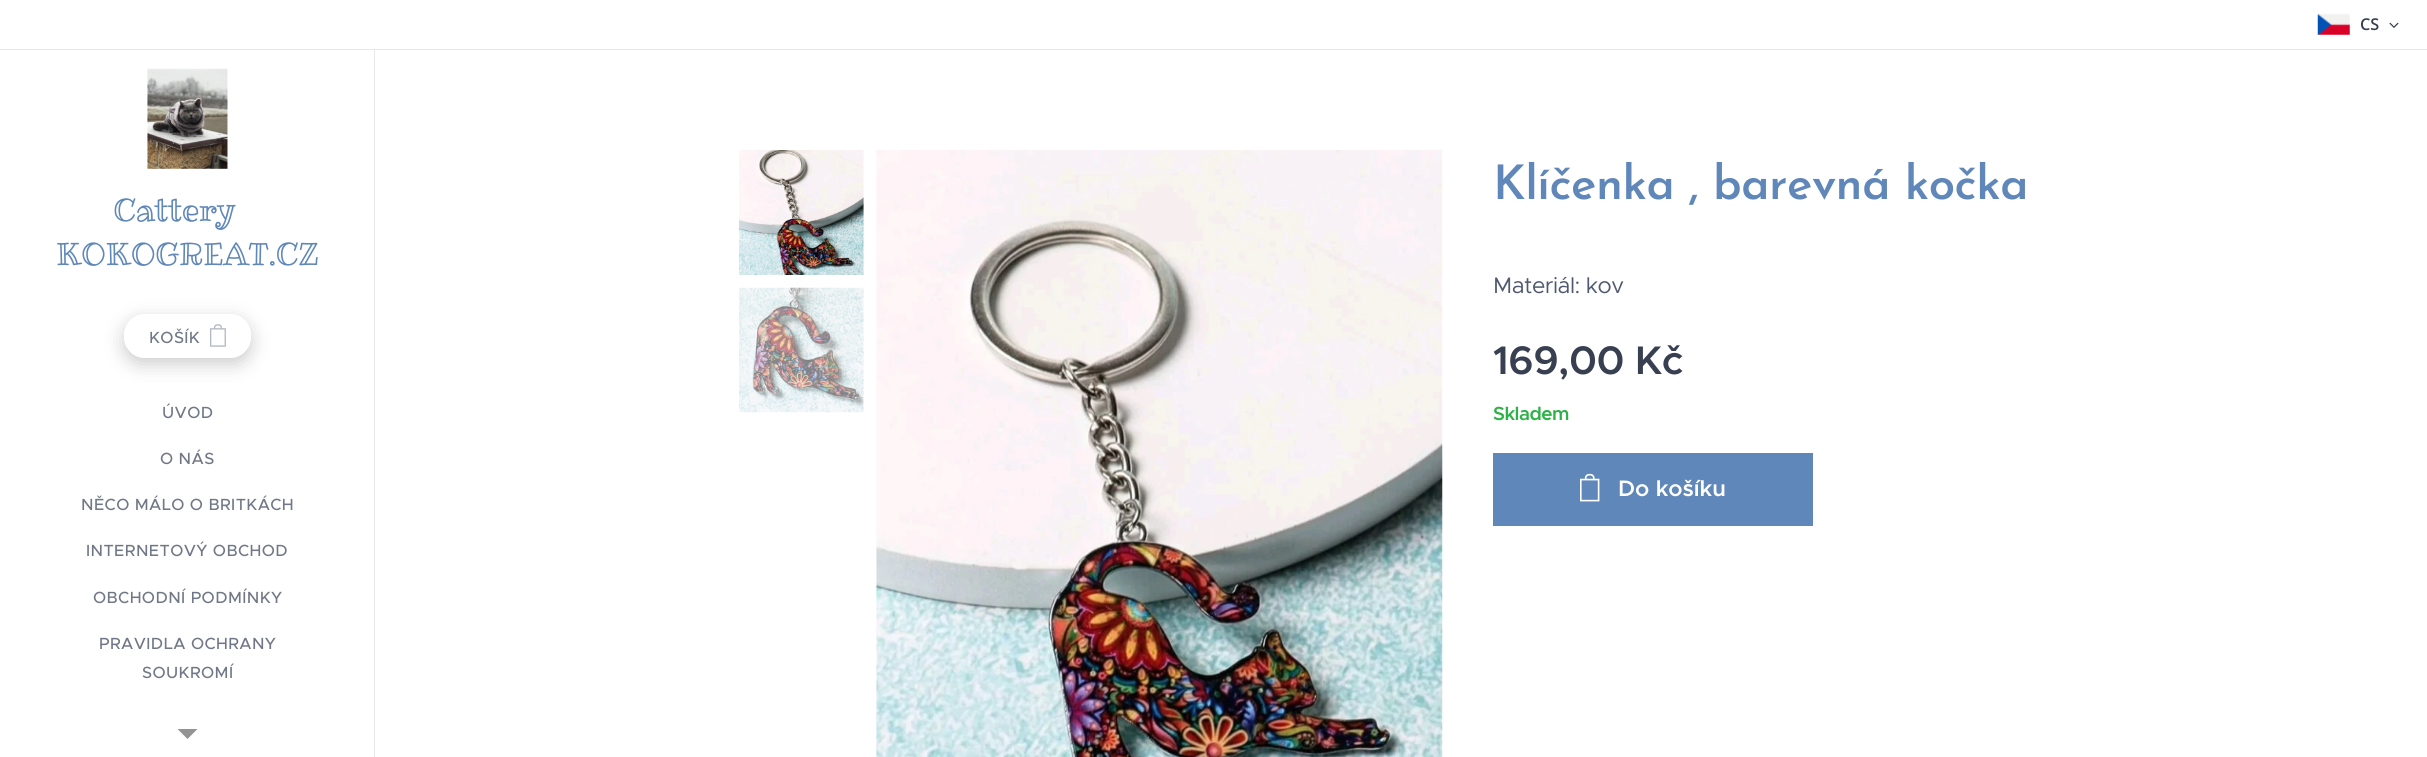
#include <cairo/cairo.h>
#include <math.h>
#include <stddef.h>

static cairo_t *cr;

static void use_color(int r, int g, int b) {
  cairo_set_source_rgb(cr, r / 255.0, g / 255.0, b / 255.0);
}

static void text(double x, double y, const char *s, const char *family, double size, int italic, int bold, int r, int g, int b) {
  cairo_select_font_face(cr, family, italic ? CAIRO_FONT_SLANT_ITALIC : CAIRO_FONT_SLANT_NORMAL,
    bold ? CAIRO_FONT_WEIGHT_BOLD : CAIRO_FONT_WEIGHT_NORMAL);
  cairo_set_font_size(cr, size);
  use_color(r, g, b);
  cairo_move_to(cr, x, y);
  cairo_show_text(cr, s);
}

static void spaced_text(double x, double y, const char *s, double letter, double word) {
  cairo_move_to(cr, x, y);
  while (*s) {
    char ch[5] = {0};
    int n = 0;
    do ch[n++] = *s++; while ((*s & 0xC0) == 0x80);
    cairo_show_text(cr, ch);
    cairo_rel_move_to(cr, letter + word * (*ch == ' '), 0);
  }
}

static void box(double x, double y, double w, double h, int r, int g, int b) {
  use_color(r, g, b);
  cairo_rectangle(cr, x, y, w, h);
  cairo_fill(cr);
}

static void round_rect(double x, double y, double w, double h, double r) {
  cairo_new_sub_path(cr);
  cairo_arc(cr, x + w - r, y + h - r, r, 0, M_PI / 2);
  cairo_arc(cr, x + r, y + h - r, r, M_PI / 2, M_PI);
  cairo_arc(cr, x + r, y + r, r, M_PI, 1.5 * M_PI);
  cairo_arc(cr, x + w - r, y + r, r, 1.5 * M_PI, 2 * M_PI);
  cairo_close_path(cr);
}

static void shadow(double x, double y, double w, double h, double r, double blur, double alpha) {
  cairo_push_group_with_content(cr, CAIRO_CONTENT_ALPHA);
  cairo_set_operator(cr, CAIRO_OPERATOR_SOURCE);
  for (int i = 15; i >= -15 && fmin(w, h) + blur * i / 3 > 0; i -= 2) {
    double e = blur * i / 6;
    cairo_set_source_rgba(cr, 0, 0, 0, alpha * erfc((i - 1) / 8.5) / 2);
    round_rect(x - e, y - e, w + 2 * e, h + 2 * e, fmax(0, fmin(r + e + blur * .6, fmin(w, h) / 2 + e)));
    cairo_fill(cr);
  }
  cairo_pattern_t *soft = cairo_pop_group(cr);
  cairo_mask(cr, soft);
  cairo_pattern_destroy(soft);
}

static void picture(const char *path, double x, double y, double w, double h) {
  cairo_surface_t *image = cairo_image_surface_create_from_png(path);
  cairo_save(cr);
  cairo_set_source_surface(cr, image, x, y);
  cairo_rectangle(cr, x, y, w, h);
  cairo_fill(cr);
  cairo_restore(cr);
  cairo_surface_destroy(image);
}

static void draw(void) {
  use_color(255, 255, 255);
  cairo_paint(cr);
  picture("img_01.png", 2317, 13, 33, 22);
  picture("img_02.png", 2389, 22, 10, 6);
  box(0, 49, 2427, 1, 232, 232, 232);
  picture("img_03.png", 147, 68, 81, 101);
  cairo_save(cr);
  cairo_set_fill_rule(cr, CAIRO_FILL_RULE_EVEN_ODD);
  cairo_new_path(cr);
  cairo_move_to(cr, 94, 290);
  cairo_line_to(cr, 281, 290);
  cairo_line_to(cr, 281, 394);
  cairo_line_to(cr, 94, 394);
  cairo_close_path(cr);
  cairo_move_to(cr, 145, 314);
  cairo_line_to(cr, 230, 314);
  cairo_curve_to(cr, 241.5, 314, 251, 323.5, 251, 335);
  cairo_line_to(cr, 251, 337);
  cairo_curve_to(cr, 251, 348.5, 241.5, 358, 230, 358);
  cairo_line_to(cr, 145, 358);
  cairo_curve_to(cr, 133.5, 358, 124, 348.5, 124, 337);
  cairo_line_to(cr, 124, 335);
  cairo_curve_to(cr, 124, 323.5, 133.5, 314, 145, 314);
  cairo_close_path(cr);
  cairo_clip(cr);
  use_color(0, 0, 0);
  shadow(124, 320, 127, 44, 21, 9.5, 0.2);
  cairo_restore(cr);
  cairo_set_source_rgba(cr, 1, 1, 1, 0.2);
  round_rect(124, 314, 127, 44, 21);
  cairo_fill(cr);
  picture("img_04.png", 210, 324, 16, 23);
  use_color(148, 148, 148);
  cairo_new_path(cr);
  cairo_move_to(cr, 177.5, 729);
  cairo_line_to(cr, 197.5, 729);
  cairo_line_to(cr, 187.5, 739);
  cairo_close_path(cr);
  cairo_fill(cr);
  box(374, 50, 1, 707, 232, 232, 232);
  picture("img_05.png", 738, 150, 126, 125);
  picture("img_06.png", 739, 287, 125, 126);
  picture("img_07.png", 876, 150, 567, 607);
  box(1493, 453, 320, 73, 96, 135, 185);
  picture("img_08.png", 1580, 473, 20, 29);
  text(2360, 30, "CS", "Open Sans SemiBold", 16.25, 0, 0, 55, 63, 81);
  cairo_select_font_face(cr, "Ribeye Marrow", CAIRO_FONT_SLANT_NORMAL, CAIRO_FONT_WEIGHT_NORMAL);
  cairo_set_font_size(cr, 31.25);
  use_color(96, 135, 185);
  spaced_text(113, 221, "Cattery", -0.5, 0);
  spaced_text(56, 265, "KOKOGREAT.CZ", -0.5, 0);
  cairo_select_font_face(cr, "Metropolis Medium", CAIRO_FONT_SLANT_NORMAL, CAIRO_FONT_WEIGHT_NORMAL);
  cairo_set_font_size(cr, 16.25);
  use_color(112, 119, 134);
  spaced_text(149, 343, "KOŠÍK", 0.4, 0);
  spaced_text(162, 418, "ÚVOD", 0.4, 0);
  spaced_text(160, 464, "O NÁS", 0.4, 0);
  spaced_text(81, 510, "NĚCO MÁLO O BRITKÁCH", 0.4, 0);
  spaced_text(86, 556, "INTERNETOVÝ OBCHOD", 0.4, 0);
  spaced_text(93, 603, "OBCHODNÍ PODMÍNKY", 0.4, 0);
  spaced_text(99, 649, "PRAVIDLA OCHRANY", 0.4, 0);
  spaced_text(142, 678, "SOUKROMÍ", 0.4, 0);
  cairo_select_font_face(cr, "Josefin Sans SemiBold", CAIRO_FONT_SLANT_NORMAL, CAIRO_FONT_WEIGHT_NORMAL);
  cairo_set_font_size(cr, 47.5);
  use_color(96, 135, 185);
  spaced_text(1493, 199, "Klíčenka , barevná kočka", -0.5, 0);
  cairo_select_font_face(cr, "Metropolis", CAIRO_FONT_SLANT_NORMAL, CAIRO_FONT_WEIGHT_NORMAL);
  cairo_set_font_size(cr, 22.5);
  use_color(78, 88, 110);
  spaced_text(1493, 293, "Materiál: kov", -0.5, 0);
  cairo_select_font_face(cr, "Metropolis SemiBold", CAIRO_FONT_SLANT_NORMAL, CAIRO_FONT_WEIGHT_NORMAL);
  cairo_set_font_size(cr, 40);
  use_color(55, 63, 81);
  spaced_text(1493, 374, "169,00 Kč", -0.5, 0);
  cairo_set_font_size(cr, 19);
  use_color(45, 178, 71);
  spaced_text(1493, 420, "Skladem", -0.5, 0);
  text(1618, 496, "Do košíku", "Metropolis SemiBold", 22.5, 0, 0, 255, 255, 255);
}

int main(void) {
  cairo_surface_t *surface = cairo_image_surface_create(CAIRO_FORMAT_RGB24, 2427, 757);
  cr = cairo_create(surface);
  cairo_font_options_t *options = cairo_font_options_create();
  cairo_font_options_set_hint_metrics(options, CAIRO_HINT_METRICS_OFF);
  cairo_font_options_set_hint_style(options, CAIRO_HINT_STYLE_NONE);
  cairo_set_font_options(cr, options);
  cairo_set_miter_limit(cr, 4);
  draw();
  cairo_surface_write_to_png(surface, "out.png");
  cairo_font_options_destroy(options);
  cairo_destroy(cr);
  cairo_surface_destroy(surface);
  return 0;
}
